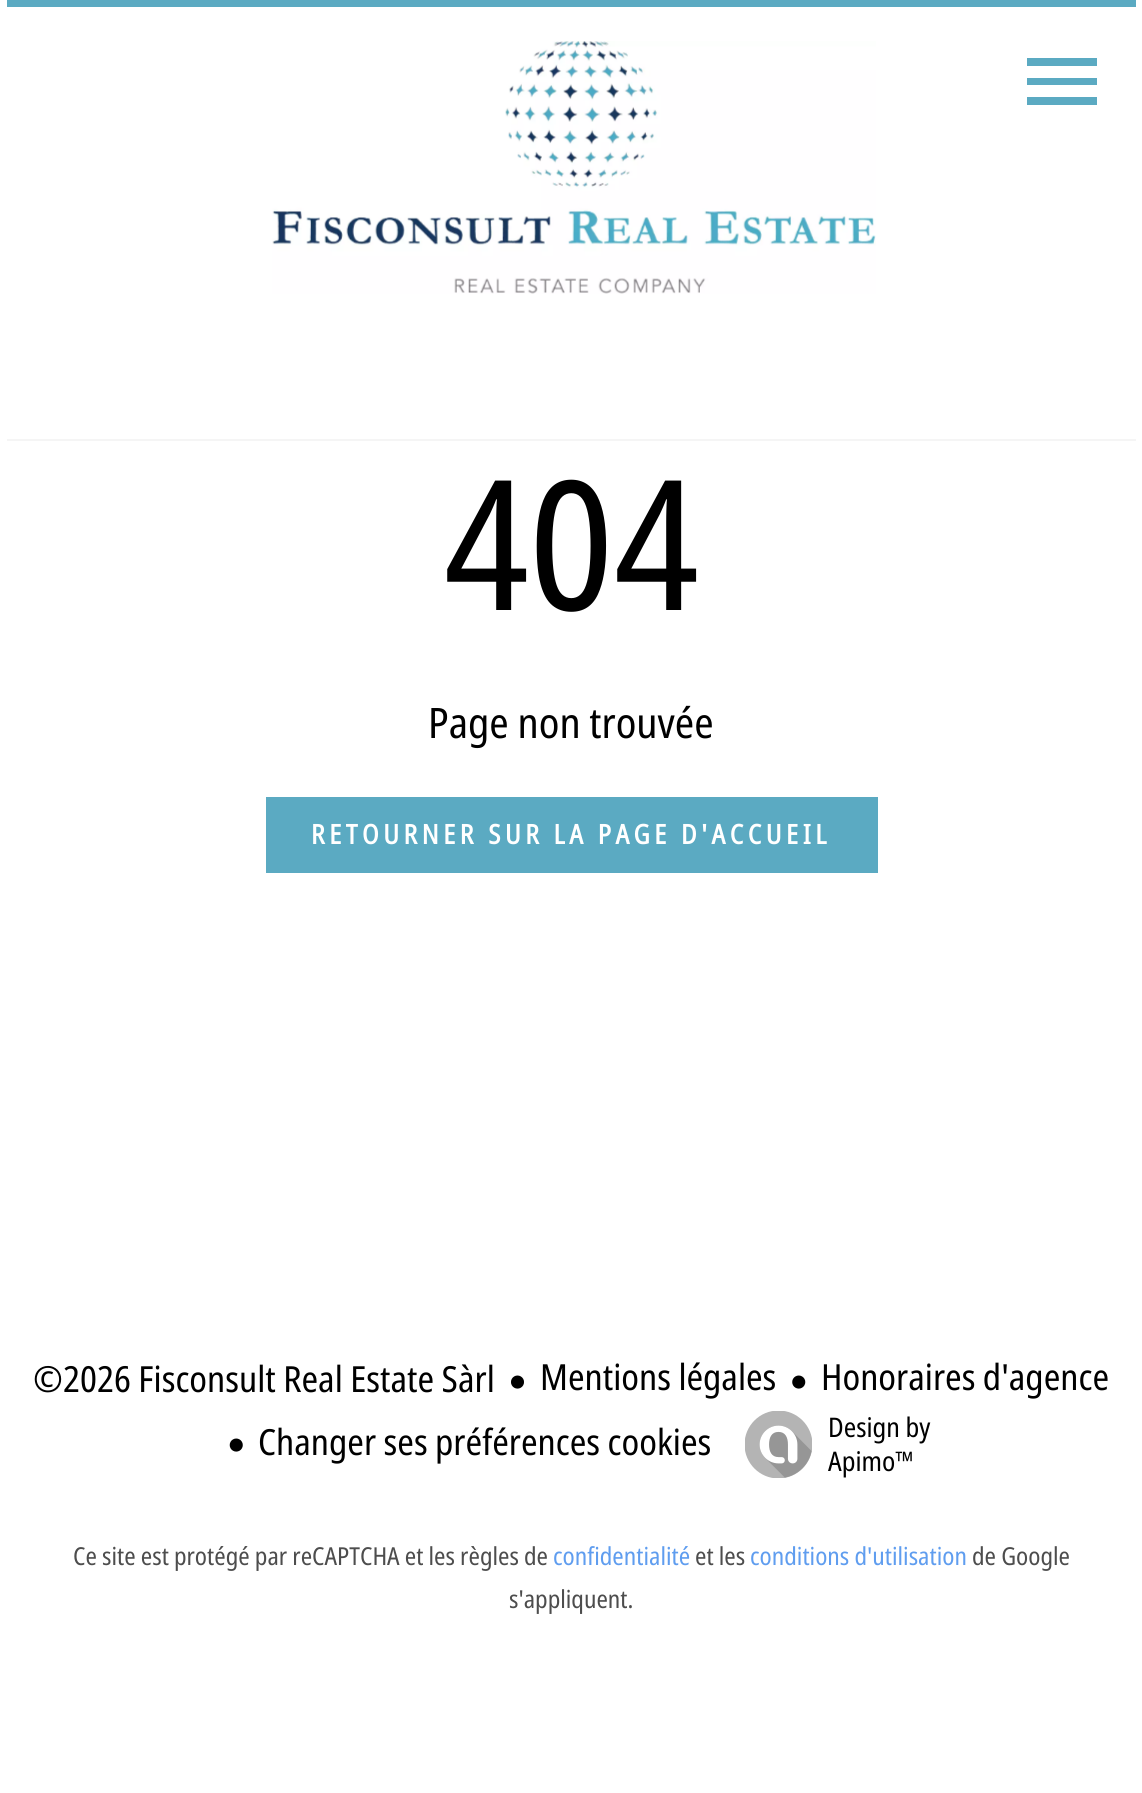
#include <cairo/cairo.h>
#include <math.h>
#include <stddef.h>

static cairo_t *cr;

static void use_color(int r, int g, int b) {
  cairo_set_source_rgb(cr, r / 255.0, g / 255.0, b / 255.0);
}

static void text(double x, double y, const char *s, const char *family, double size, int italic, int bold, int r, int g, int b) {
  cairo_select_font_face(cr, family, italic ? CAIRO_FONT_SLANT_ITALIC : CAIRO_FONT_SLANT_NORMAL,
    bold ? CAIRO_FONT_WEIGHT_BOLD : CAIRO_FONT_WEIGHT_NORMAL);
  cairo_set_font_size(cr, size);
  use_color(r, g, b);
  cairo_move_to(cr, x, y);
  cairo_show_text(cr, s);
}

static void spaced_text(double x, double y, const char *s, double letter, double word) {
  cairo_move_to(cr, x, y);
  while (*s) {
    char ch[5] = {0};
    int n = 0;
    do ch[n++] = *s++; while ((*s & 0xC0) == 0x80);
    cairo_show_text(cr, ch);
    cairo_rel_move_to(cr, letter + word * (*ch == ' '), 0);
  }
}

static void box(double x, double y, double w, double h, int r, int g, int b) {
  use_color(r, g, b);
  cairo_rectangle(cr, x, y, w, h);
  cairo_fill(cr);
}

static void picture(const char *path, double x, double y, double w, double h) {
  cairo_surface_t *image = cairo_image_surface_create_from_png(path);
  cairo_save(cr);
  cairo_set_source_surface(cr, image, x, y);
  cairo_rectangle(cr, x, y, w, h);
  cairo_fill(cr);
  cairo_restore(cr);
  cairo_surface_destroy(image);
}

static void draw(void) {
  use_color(255, 255, 255);
  cairo_paint(cr);
  box(7, 439, 1129, 2, 245, 245, 245);
  box(7, 0, 1129, 7, 91, 170, 194);
  picture("img_01.png", 272, 41, 604, 253);
  cairo_new_path(cr);
  cairo_move_to(cr, 1027, 58);
  cairo_line_to(cr, 1097, 58);
  cairo_line_to(cr, 1097, 66);
  cairo_line_to(cr, 1027, 66);
  cairo_close_path(cr);
  cairo_move_to(cr, 1027, 78);
  cairo_line_to(cr, 1097, 78);
  cairo_line_to(cr, 1097, 85);
  cairo_line_to(cr, 1027, 85);
  cairo_close_path(cr);
  cairo_move_to(cr, 1027, 97);
  cairo_line_to(cr, 1097, 97);
  cairo_line_to(cr, 1097, 105);
  cairo_line_to(cr, 1027, 105);
  cairo_close_path(cr);
  cairo_fill(cr);
  box(266, 797, 612, 76, 91, 170, 194);
  picture("img_02.png", 511, 1375, 13, 14);
  picture("img_03.png", 792, 1375, 14, 14);
  picture("img_04.png", 229, 1438, 14, 14);
  picture("img_05.png", 745, 1411, 67, 67);
  text(444, 610, "404", "Noto Sans", 180, 0, 0, 0, 0, 0);
  text(428, 738, "Page non trouvée", "Noto Sans", 42, 0, 0, 0, 0, 0);
  cairo_select_font_face(cr, "Noto Sans", CAIRO_FONT_SLANT_NORMAL, CAIRO_FONT_WEIGHT_BOLD);
  cairo_set_font_size(cr, 27);
  use_color(255, 255, 255);
  spaced_text(311, 844, "RETOURNER SUR LA PAGE D'ACCUEIL", 4.5, 0);
  text(33, 1392, "©2026 Fisconsult Real Estate Sàrl", "Noto Sans", 36, 0, 0, 0, 0, 0);
  text(540, 1390, "Mentions légales", "Noto Sans", 36, 0, 0, 0, 0, 0);
  text(821, 1390, "Honoraires d'agence", "Noto Sans", 36, 0, 0, 0, 0, 0);
  text(258, 1455, "Changer ses préférences cookies", "Noto Sans", 36, 0, 0, 0, 0, 0);
  text(828, 1437, "Design by", "Noto Sans", 27, 0, 0, 0, 0, 0);
  text(828, 1471, "Apimo™", "Noto Sans", 27, 0, 0, 0, 0, 0);
  text(73, 1565, "Ce site est protégé par reCAPTCHA et les règles de", "Noto Sans", 24.75, 0, 0, 77, 77, 77);
  text(553, 1565, "confidentialité", "Noto Sans", 24.75, 0, 0, 95, 157, 239);
  text(695, 1565, "et les", "Noto Sans", 24.75, 0, 0, 77, 77, 77);
  text(750, 1565, "conditions d'utilisation", "Noto Sans", 24.75, 0, 0, 95, 157, 239);
  text(972, 1565, "de Google", "Noto Sans", 24.75, 0, 0, 77, 77, 77);
  text(509, 1608, "s'appliquent.", "Noto Sans", 24.75, 0, 0, 77, 77, 77);
}

int main(void) {
  cairo_surface_t *surface = cairo_image_surface_create(CAIRO_FORMAT_RGB24, 1142, 1793);
  cr = cairo_create(surface);
  cairo_font_options_t *options = cairo_font_options_create();
  cairo_font_options_set_hint_metrics(options, CAIRO_HINT_METRICS_OFF);
  cairo_font_options_set_hint_style(options, CAIRO_HINT_STYLE_NONE);
  cairo_set_font_options(cr, options);
  cairo_set_miter_limit(cr, 4);
  draw();
  cairo_surface_write_to_png(surface, "out.png");
  cairo_font_options_destroy(options);
  cairo_destroy(cr);
  cairo_surface_destroy(surface);
  return 0;
}
